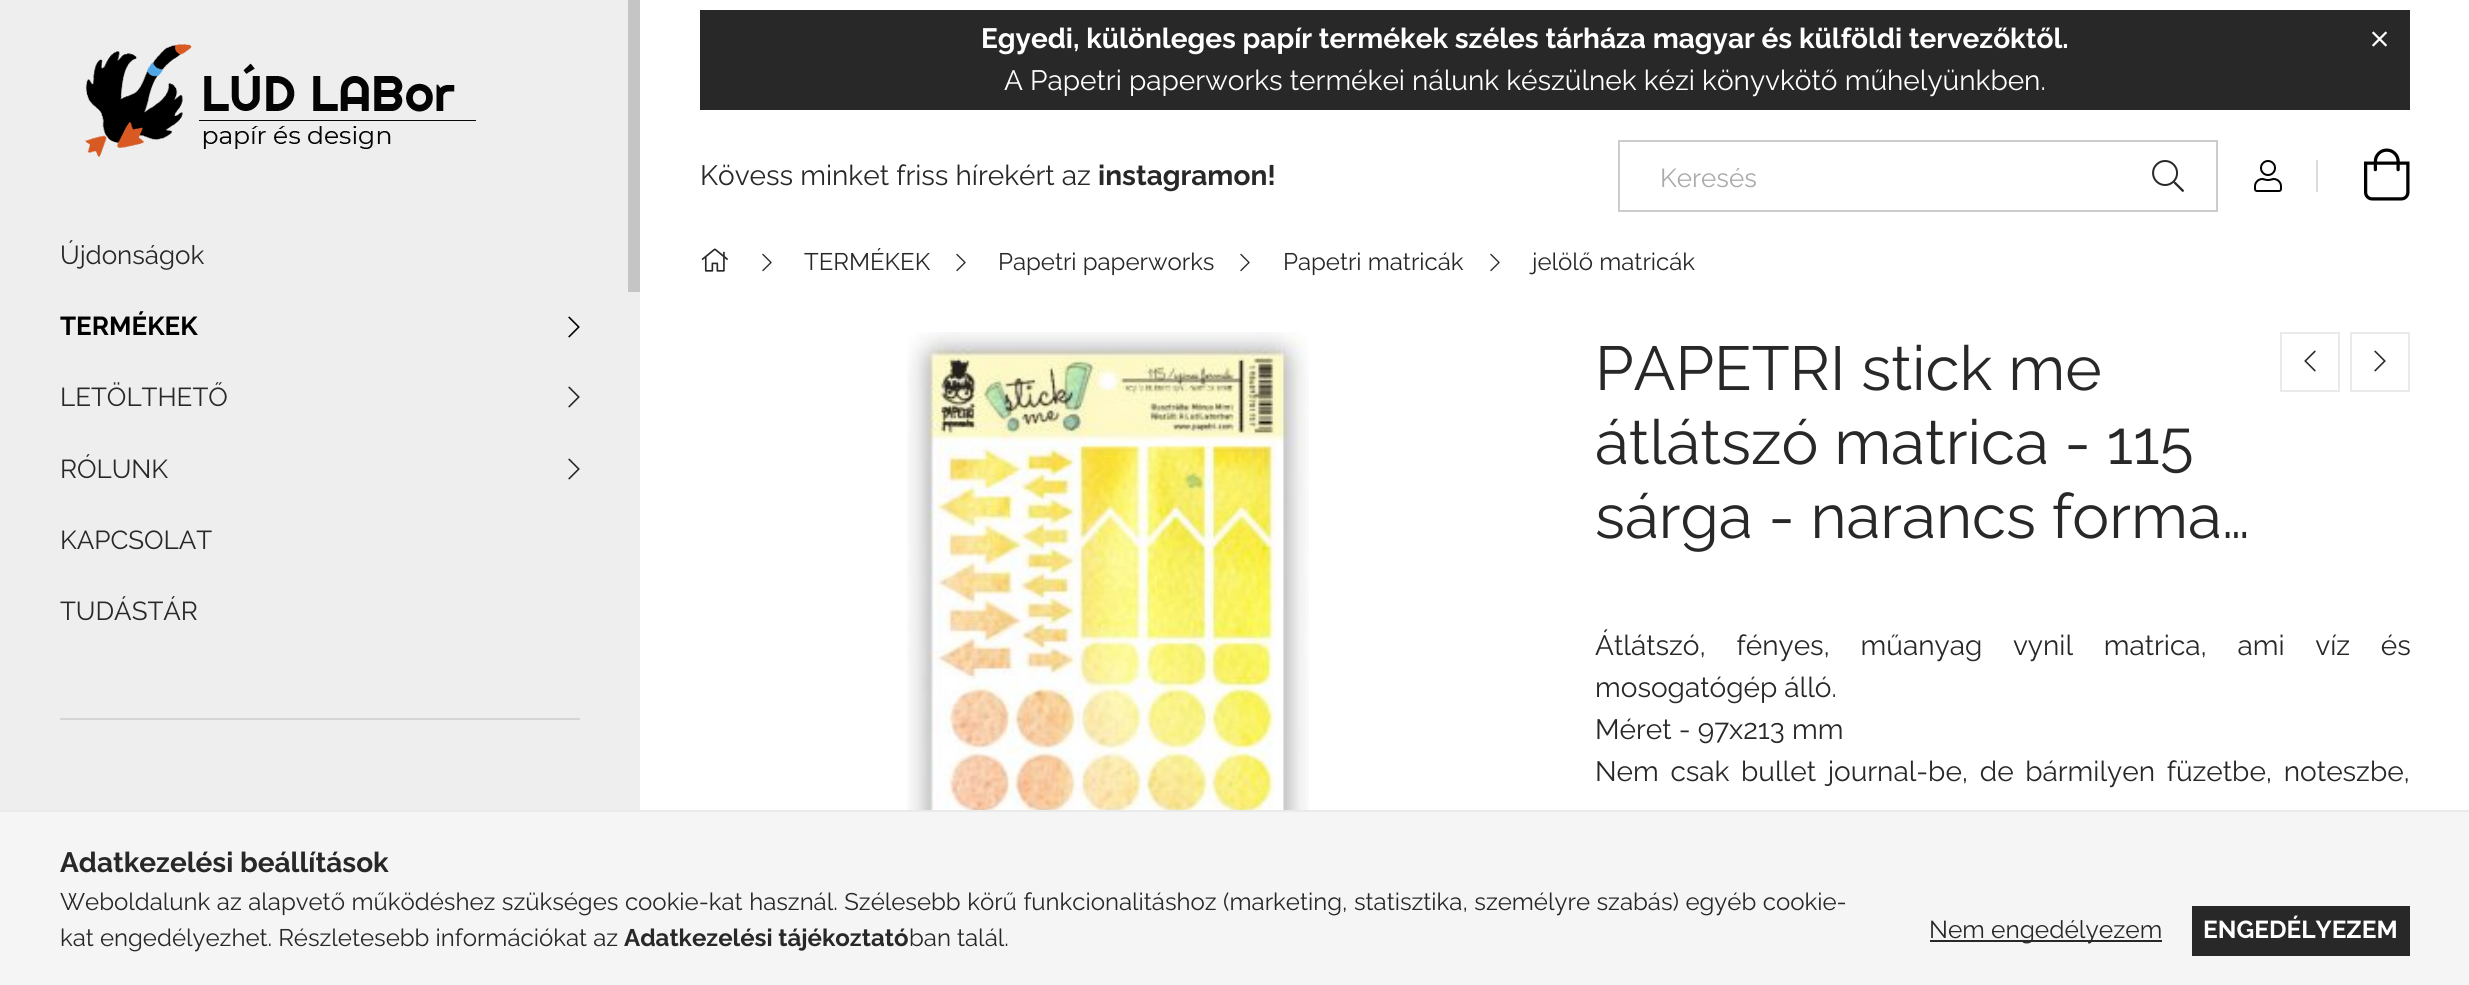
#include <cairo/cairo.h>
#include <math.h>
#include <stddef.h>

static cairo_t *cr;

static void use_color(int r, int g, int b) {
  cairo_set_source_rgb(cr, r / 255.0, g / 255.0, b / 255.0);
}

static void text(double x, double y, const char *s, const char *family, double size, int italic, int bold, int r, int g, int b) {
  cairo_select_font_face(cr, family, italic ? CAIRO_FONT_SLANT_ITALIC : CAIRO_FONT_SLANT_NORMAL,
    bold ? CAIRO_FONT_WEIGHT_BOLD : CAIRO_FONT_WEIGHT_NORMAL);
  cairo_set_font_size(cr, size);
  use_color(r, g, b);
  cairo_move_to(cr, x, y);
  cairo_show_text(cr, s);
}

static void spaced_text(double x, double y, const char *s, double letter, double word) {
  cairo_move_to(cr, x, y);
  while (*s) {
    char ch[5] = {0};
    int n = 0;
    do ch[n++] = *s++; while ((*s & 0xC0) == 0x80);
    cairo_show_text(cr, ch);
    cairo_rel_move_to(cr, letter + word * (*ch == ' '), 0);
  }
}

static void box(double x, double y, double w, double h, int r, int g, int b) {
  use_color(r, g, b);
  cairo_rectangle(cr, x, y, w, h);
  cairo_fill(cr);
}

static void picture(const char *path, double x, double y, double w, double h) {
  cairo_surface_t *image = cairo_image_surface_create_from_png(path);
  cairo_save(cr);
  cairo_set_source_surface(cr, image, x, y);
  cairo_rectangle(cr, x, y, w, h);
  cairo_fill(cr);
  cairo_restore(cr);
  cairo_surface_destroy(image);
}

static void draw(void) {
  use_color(255, 255, 255);
  cairo_paint(cr);
  box(0, 0, 640, 810, 238, 238, 238);
  box(628, 0, 12, 292, 197, 197, 197);
  picture("img_01.png", 85, 44, 391, 113);
  picture("img_02.png", 568, 316, 12, 22);
  picture("img_03.png", 568, 386, 12, 22);
  picture("img_03.png", 568, 458, 12, 22);
  box(60, 718, 520, 2, 213, 213, 213);
  box(700, 10, 1710, 100, 40, 40, 40);
  picture("img_04.png", 2372, 31, 15, 16);
  cairo_rectangle(cr, 1619, 141, 598, 70);
  use_color(204, 204, 204);
  cairo_stroke(cr);
  picture("img_05.png", 2152, 160, 32, 32);
  picture("img_06.png", 2254, 160, 28, 32);
  box(2316, 160, 2, 32, 221, 221, 221);
  picture("img_07.png", 2364, 148, 46, 53);
  picture("img_08.png", 701, 248, 27, 24);
  picture("img_09.png", 762, 253, 10, 19);
  picture("img_09.png", 956, 253, 10, 19);
  picture("img_09.png", 1240, 253, 10, 19);
  picture("img_09.png", 1490, 253, 10, 19);
  picture("img_10.png", 907, 332, 402, 478);
  cairo_rectangle(cr, 2281, 333, 58, 58);
  use_color(234, 234, 234);
  cairo_stroke(cr);
  picture("img_11.png", 2304, 350, 12, 22);
  cairo_rectangle(cr, 2351, 333, 58, 58);
  cairo_stroke(cr);
  picture("img_12.png", 2374, 350, 12, 22);
  box(0, 812, 2469, 173, 245, 245, 245);
  box(0, 810, 2469, 2, 234, 234, 234);
  box(1930, 940, 232, 2, 40, 40, 40);
  box(2192, 906, 218, 50, 40, 40, 40);
  text(60, 264, "Újdonságok", "Raleway", 26, 0, 0, 40, 40, 40);
  text(60, 335, "TERMÉKEK", "Raleway", 26, 0, 1, 0, 0, 0);
  text(60, 406, "LETÖLTHETŐ", "Raleway", 26, 0, 0, 40, 40, 40);
  text(60, 478, "RÓLUNK", "Raleway", 26, 0, 0, 40, 40, 40);
  text(60, 549, "KAPCSOLAT", "Raleway", 26, 0, 0, 40, 40, 40);
  text(60, 620, "TUDÁSTÁR", "Raleway", 26, 0, 0, 40, 40, 40);
  text(981, 48, "Egyedi, különleges papír termékek széles tárháza magyar és külföldi tervezőktől.", "Raleway", 28, 0, 1, 255, 255, 255);
  text(1004, 90, "A Papetri paperworks termékei nálunk készülnek kézi könyvkötő műhelyünkben.", "Raleway", 28, 0, 0, 255, 255, 255);
  text(700, 185, "Kövess minket friss hírekért az", "Raleway", 28, 0, 0, 40, 40, 40);
  text(1098, 185, "instagramon!", "Raleway", 28, 0, 1, 40, 40, 40);
  text(1660, 187, "Keresés", "Raleway", 26, 0, 0, 170, 170, 170);
  text(804, 270, "TERMÉKEK", "Raleway", 24, 0, 0, 40, 40, 40);
  text(998, 270, "Papetri paperworks", "Raleway", 24, 0, 0, 40, 40, 40);
  text(1283, 270, "Papetri matricák", "Raleway", 24, 0, 0, 40, 40, 40);
  text(1532, 270, "jelölő matricák", "Raleway", 24, 0, 0, 40, 40, 40);
  text(1595, 390, "PAPETRI stick me", "Raleway", 62, 0, 0, 40, 40, 40);
  text(1595, 464, "átlátszó matrica - 115", "Raleway", 62, 0, 0, 40, 40, 40);
  text(1595, 538, "sárga - narancs forma…", "Raleway", 62, 0, 0, 40, 40, 40);
  cairo_set_font_size(cr, 28);
  spaced_text(1595, 655, "Átlátszó, fényes, műanyag vynil matrica, ami víz és", 0, 23.5);
  text(1595, 697, "mosogatógép álló.", "Raleway", 28, 0, 0, 40, 40, 40);
  text(1595, 739, "Méret - 97x213 mm", "Raleway", 28, 0, 0, 40, 40, 40);
  spaced_text(1595, 781, "Nem csak bullet journal-be, de bármilyen füzetbe, noteszbe,", 0, 4.5);
  text(60, 872, "Adatkezelési beállítások", "Raleway", 28, 0, 1, 40, 40, 40);
  cairo_select_font_face(cr, "Raleway", CAIRO_FONT_SLANT_NORMAL, CAIRO_FONT_WEIGHT_NORMAL);
  cairo_set_font_size(cr, 24);
  spaced_text(60, 910, "Weboldalunk az alapvető működéshez szükséges cookie-kat használ. Szélesebb körű funkcionalitáshoz (marketing, statisztika, személyre szabás) egyéb cookie-", 0, 0.4);
  text(60, 946, "kat engedélyezhet. Részletesebb információkat az", "Raleway", 24, 0, 0, 40, 40, 40);
  text(624, 946, "Adatkezelési tájékoztató", "Raleway", 24, 0, 1, 40, 40, 40);
  text(909, 946, "ban talál.", "Raleway", 24, 0, 0, 40, 40, 40);
  text(1929, 938, "Nem engedélyezem", "Raleway", 24.5, 0, 0, 40, 40, 40);
  text(2203, 938, "ENGEDÉLYEZEM", "Raleway", 24.5, 0, 1, 255, 255, 255);
}

int main(void) {
  cairo_surface_t *surface = cairo_image_surface_create(CAIRO_FORMAT_RGB24, 2469, 985);
  cr = cairo_create(surface);
  cairo_font_options_t *options = cairo_font_options_create();
  cairo_font_options_set_hint_metrics(options, CAIRO_HINT_METRICS_OFF);
  cairo_font_options_set_hint_style(options, CAIRO_HINT_STYLE_NONE);
  cairo_set_font_options(cr, options);
  cairo_set_miter_limit(cr, 4);
  draw();
  cairo_surface_write_to_png(surface, "out.png");
  cairo_font_options_destroy(options);
  cairo_destroy(cr);
  cairo_surface_destroy(surface);
  return 0;
}
